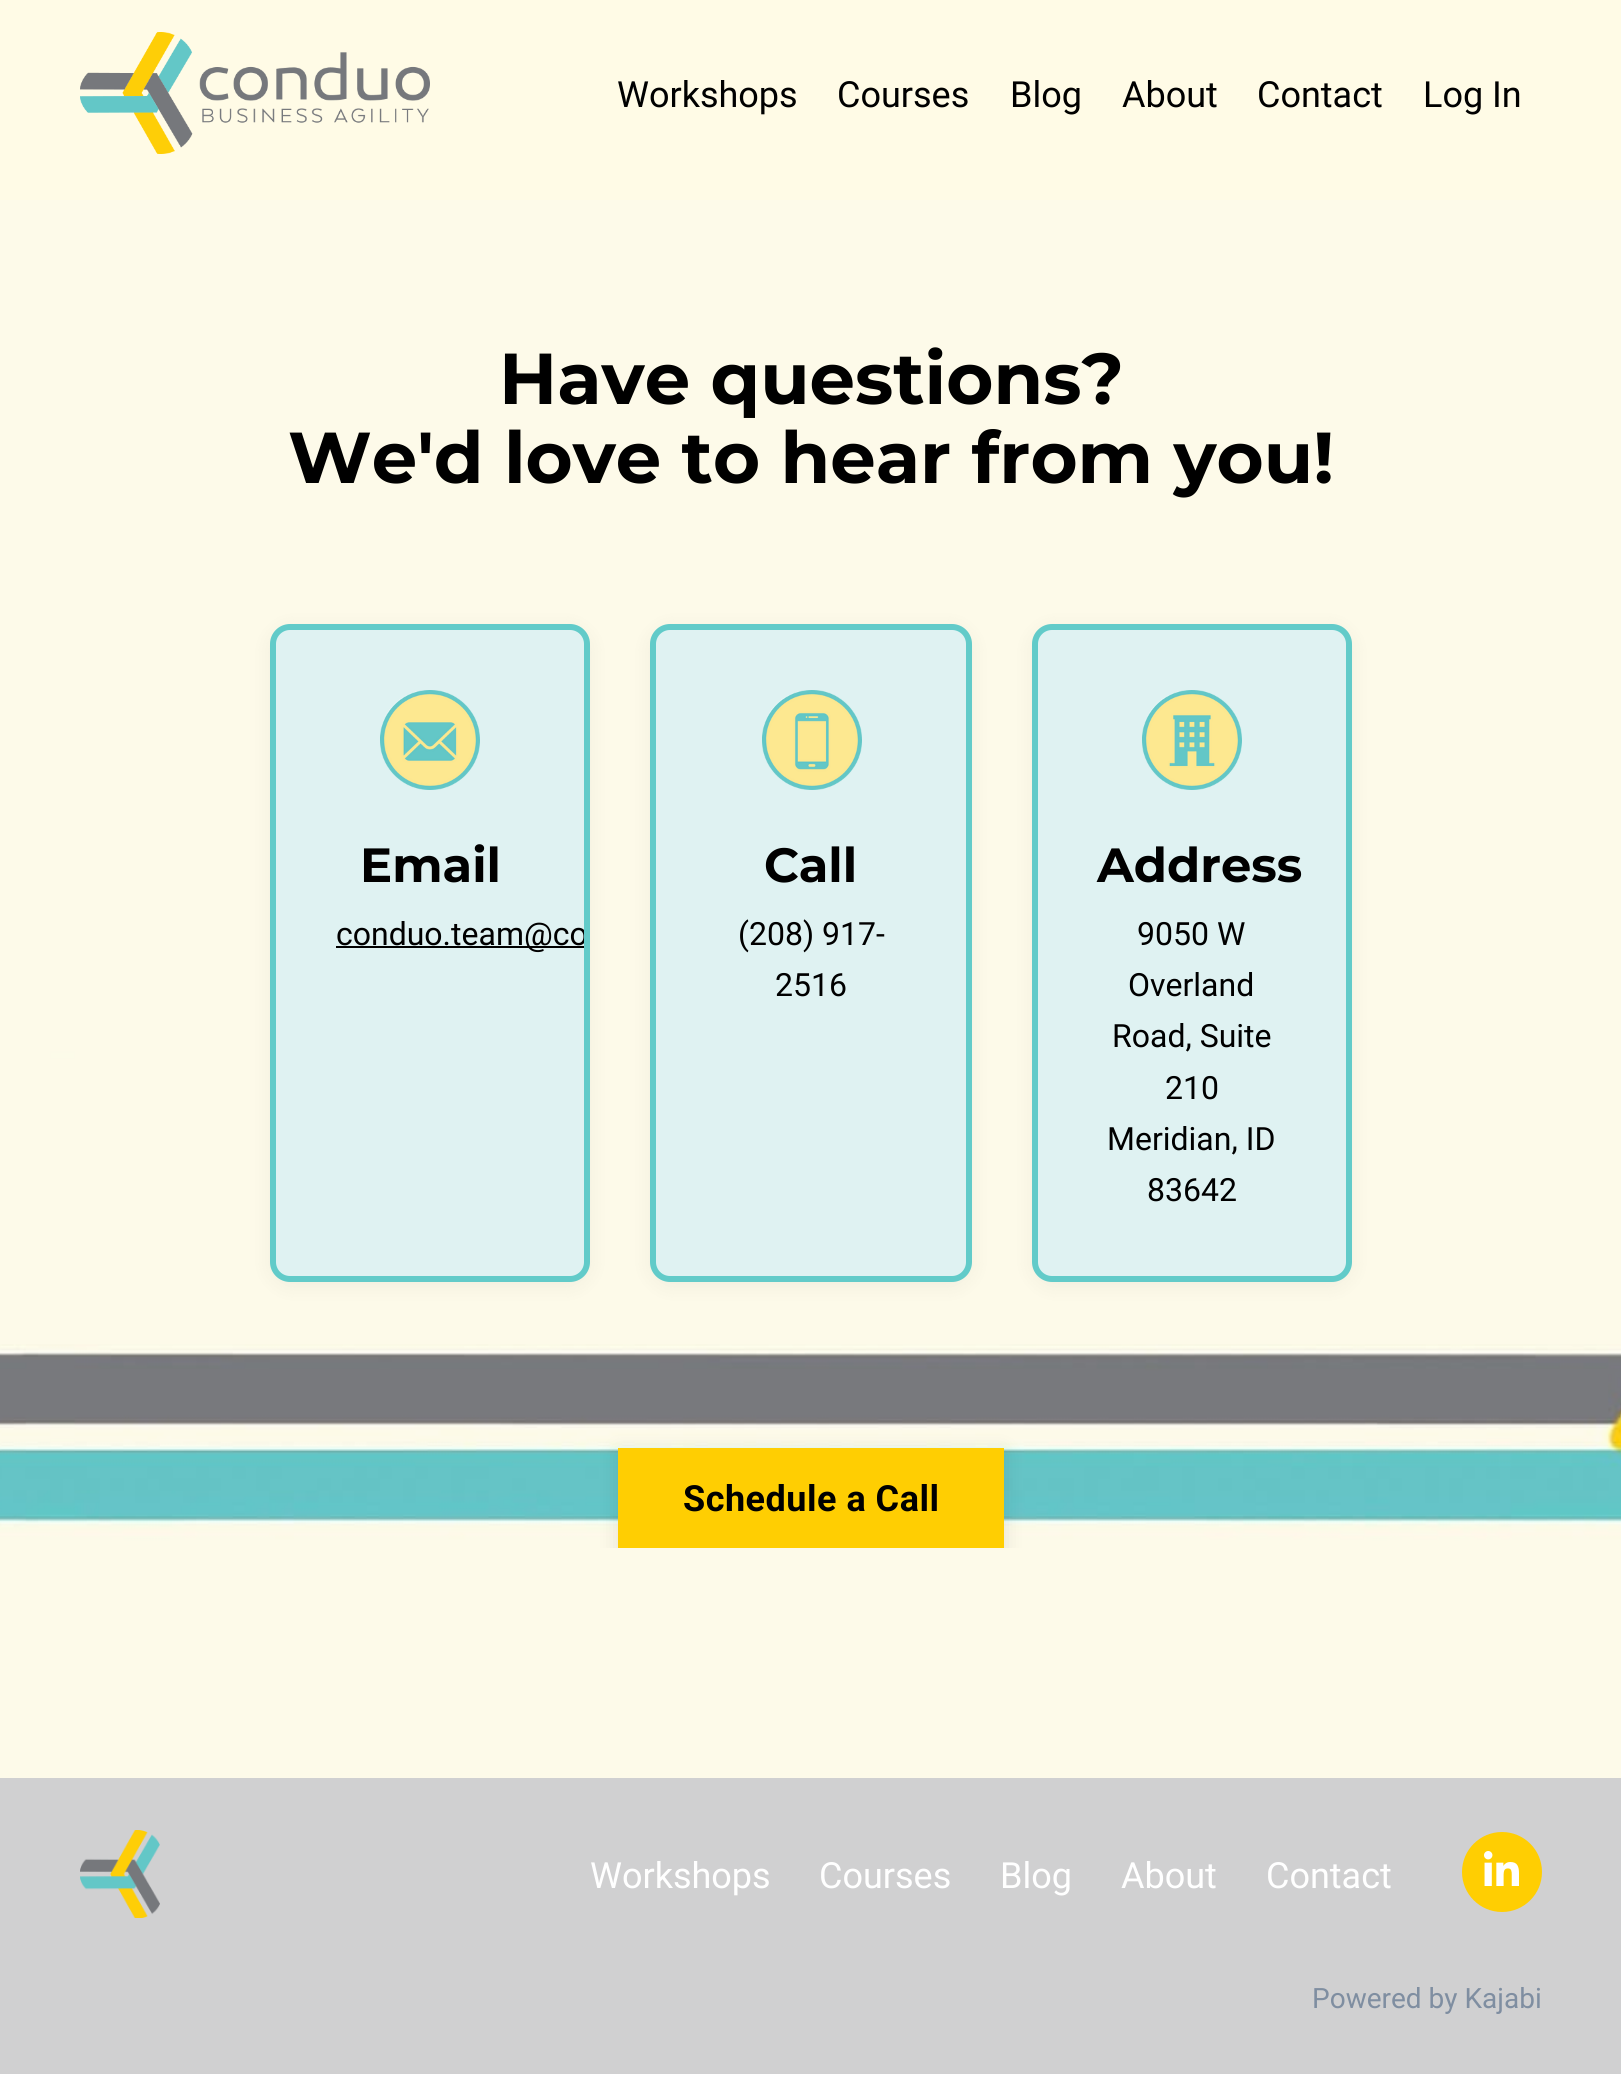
#include <cairo/cairo.h>
#include <math.h>
#include <stddef.h>

static cairo_t *cr;

static void use_color(int r, int g, int b) {
  cairo_set_source_rgb(cr, r / 255.0, g / 255.0, b / 255.0);
}

static void text(double x, double y, const char *s, const char *family, double size, int italic, int bold, int r, int g, int b) {
  cairo_select_font_face(cr, family, italic ? CAIRO_FONT_SLANT_ITALIC : CAIRO_FONT_SLANT_NORMAL,
    bold ? CAIRO_FONT_WEIGHT_BOLD : CAIRO_FONT_WEIGHT_NORMAL);
  cairo_set_font_size(cr, size);
  use_color(r, g, b);
  cairo_move_to(cr, x, y);
  cairo_show_text(cr, s);
}

static void spaced_text(double x, double y, const char *s, double letter, double word) {
  cairo_move_to(cr, x, y);
  while (*s) {
    char ch[5] = {0};
    int n = 0;
    do ch[n++] = *s++; while ((*s & 0xC0) == 0x80);
    cairo_show_text(cr, ch);
    cairo_rel_move_to(cr, letter + word * (*ch == ' '), 0);
  }
}

static void box(double x, double y, double w, double h, int r, int g, int b) {
  use_color(r, g, b);
  cairo_rectangle(cr, x, y, w, h);
  cairo_fill(cr);
}

static void round_rect(double x, double y, double w, double h, double r) {
  cairo_new_sub_path(cr);
  cairo_arc(cr, x + w - r, y + h - r, r, 0, M_PI / 2);
  cairo_arc(cr, x + r, y + h - r, r, M_PI / 2, M_PI);
  cairo_arc(cr, x + r, y + r, r, M_PI, 1.5 * M_PI);
  cairo_arc(cr, x + w - r, y + r, r, 1.5 * M_PI, 2 * M_PI);
  cairo_close_path(cr);
}

static void shadow(double x, double y, double w, double h, double r, double blur, double alpha) {
  cairo_push_group_with_content(cr, CAIRO_CONTENT_ALPHA);
  cairo_set_operator(cr, CAIRO_OPERATOR_SOURCE);
  for (int i = 15; i >= -15 && fmin(w, h) + blur * i / 3 > 0; i -= 2) {
    double e = blur * i / 6;
    cairo_set_source_rgba(cr, 0, 0, 0, alpha * erfc((i - 1) / 8.5) / 2);
    round_rect(x - e, y - e, w + 2 * e, h + 2 * e, fmax(0, fmin(r + e + blur * .6, fmin(w, h) / 2 + e)));
    cairo_fill(cr);
  }
  cairo_pattern_t *soft = cairo_pop_group(cr);
  cairo_mask(cr, soft);
  cairo_pattern_destroy(soft);
}

static void picture(const char *path, double x, double y, double w, double h) {
  cairo_surface_t *image = cairo_image_surface_create_from_png(path);
  cairo_save(cr);
  cairo_set_source_surface(cr, image, x, y);
  cairo_rectangle(cr, x, y, w, h);
  cairo_fill(cr);
  cairo_restore(cr);
  cairo_surface_destroy(image);
}

static void draw(void) {
  use_color(255, 251, 230);
  cairo_paint(cr);
  picture("img_01.png", 80, 32, 350, 122);
  picture("img_02.png", 0, 200, 1621, 1578);
  use_color(0, 0, 0);
  shadow(270, 628, 320, 658, 20, 10, 0.05);
  use_color(223, 242, 242);
  round_rect(273, 627, 314, 652, 17);
  cairo_fill_preserve(cr);
  use_color(98, 203, 201);
  cairo_set_line_width(cr, 6);
  cairo_stroke(cr);
  picture("img_03.png", 380, 690, 100, 100);
  box(336, 946, 248, 2, 0, 0, 0);
  use_color(0, 0, 0);
  shadow(650, 628, 322, 658, 20, 10, 0.05);
  use_color(223, 242, 242);
  round_rect(653, 627, 316, 652, 17);
  cairo_fill_preserve(cr);
  use_color(98, 203, 201);
  cairo_stroke(cr);
  picture("img_04.png", 762, 690, 100, 100);
  use_color(0, 0, 0);
  shadow(1032, 628, 320, 658, 20, 10, 0.05);
  use_color(223, 242, 242);
  round_rect(1035, 627, 314, 652, 17);
  cairo_fill_preserve(cr);
  use_color(98, 203, 201);
  cairo_stroke(cr);
  picture("img_05.png", 1142, 690, 100, 100);
  cairo_save(cr);
  round_rect(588, 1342, 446, 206, 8);
  cairo_clip(cr);
  use_color(0, 0, 0);
  shadow(618, 1452, 386, 100, 0, 10, 0.1);
  cairo_restore(cr);
  box(618, 1448, 386, 100, 255, 206, 2);
  box(0, 1778, 1621, 296, 208, 208, 209);
  picture("img_06.png", 80, 1830, 80, 88);
  use_color(255, 206, 2);
  cairo_arc(cr, 1502, 1872, 40, 0, 2 * M_PI);
  cairo_fill(cr);
  picture("img_07.png", 1484, 1851, 35, 35);
  text(617, 107, "Workshops", "Roboto", 36, 0, 0, 0, 0, 0);
  text(837, 107, "Courses", "Roboto", 36, 0, 0, 0, 0, 0);
  text(1010, 107, "Blog", "Roboto", 36, 0, 0, 0, 0, 0);
  text(1122, 107, "About", "Roboto", 36, 0, 0, 0, 0, 0);
  text(1257, 107, "Contact", "Roboto", 36, 0, 0, 0, 0, 0);
  text(1423, 107, "Log In", "Roboto", 36, 0, 0, 0, 0, 0);
  text(499, 404, "Have questions?", "Montserrat", 72, 0, 1, 0, 0, 0);
  text(288, 483, "We'd love to hear from you!", "Montserrat", 72, 0, 1, 0, 0, 0);
  text(360, 882, "Email", "Montserrat", 48, 0, 1, 0, 0, 0);
  cairo_save(cr);
  round_rect(276, 630, 308, 646, 14);
  cairo_clip(cr);
  text(336, 945, "conduo.team@co", "Roboto", 32, 0, 0, 0, 0, 0);
  cairo_restore(cr);
  text(764, 882, "Call", "Montserrat", 48, 0, 1, 0, 0, 0);
  text(738, 945, "(208) 917-", "Roboto", 32, 0, 0, 0, 0, 0);
  text(775, 996, "2516", "Roboto", 32, 0, 0, 0, 0, 0);
  text(1097, 882, "Address", "Montserrat", 48, 0, 1, 0, 0, 0);
  text(1137, 945, "9050 W", "Roboto", 32, 0, 0, 0, 0, 0);
  text(1128, 996, "Overland", "Roboto", 32, 0, 0, 0, 0, 0);
  text(1112, 1047, "Road, Suite", "Roboto", 32, 0, 0, 0, 0, 0);
  text(1165, 1099, "210", "Roboto", 32, 0, 0, 0, 0, 0);
  text(1107, 1150, "Meridian, ID", "Roboto", 32, 0, 0, 0, 0, 0);
  text(1147, 1201, "83642", "Roboto", 32, 0, 0, 0, 0, 0);
  cairo_select_font_face(cr, "Roboto", CAIRO_FONT_SLANT_NORMAL, CAIRO_FONT_WEIGHT_BOLD);
  cairo_set_font_size(cr, 36);
  spaced_text(683, 1511, "Schedule a Call", 0.5, 0);
  text(590, 1888, "Workshops", "Roboto", 36, 0, 0, 255, 255, 255);
  text(819, 1888, "Courses", "Roboto", 36, 0, 0, 255, 255, 255);
  text(1000, 1888, "Blog", "Roboto", 36, 0, 0, 255, 255, 255);
  text(1121, 1888, "About", "Roboto", 36, 0, 0, 255, 255, 255);
  text(1266, 1888, "Contact", "Roboto", 36, 0, 0, 255, 255, 255);
  text(1312, 2008, "Powered by Kajabi", "Roboto", 28, 0, 0, 127, 142, 161);
}

int main(void) {
  cairo_surface_t *surface = cairo_image_surface_create(CAIRO_FORMAT_RGB24, 1621, 2074);
  cr = cairo_create(surface);
  cairo_font_options_t *options = cairo_font_options_create();
  cairo_font_options_set_hint_metrics(options, CAIRO_HINT_METRICS_OFF);
  cairo_font_options_set_hint_style(options, CAIRO_HINT_STYLE_NONE);
  cairo_set_font_options(cr, options);
  cairo_set_miter_limit(cr, 4);
  draw();
  cairo_surface_write_to_png(surface, "out.png");
  cairo_font_options_destroy(options);
  cairo_destroy(cr);
  cairo_surface_destroy(surface);
  return 0;
}
